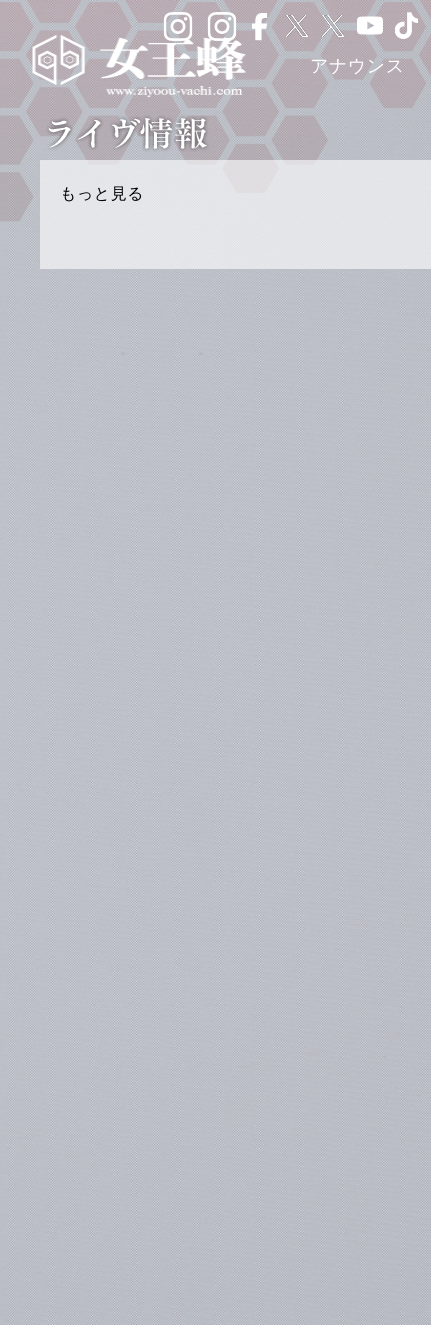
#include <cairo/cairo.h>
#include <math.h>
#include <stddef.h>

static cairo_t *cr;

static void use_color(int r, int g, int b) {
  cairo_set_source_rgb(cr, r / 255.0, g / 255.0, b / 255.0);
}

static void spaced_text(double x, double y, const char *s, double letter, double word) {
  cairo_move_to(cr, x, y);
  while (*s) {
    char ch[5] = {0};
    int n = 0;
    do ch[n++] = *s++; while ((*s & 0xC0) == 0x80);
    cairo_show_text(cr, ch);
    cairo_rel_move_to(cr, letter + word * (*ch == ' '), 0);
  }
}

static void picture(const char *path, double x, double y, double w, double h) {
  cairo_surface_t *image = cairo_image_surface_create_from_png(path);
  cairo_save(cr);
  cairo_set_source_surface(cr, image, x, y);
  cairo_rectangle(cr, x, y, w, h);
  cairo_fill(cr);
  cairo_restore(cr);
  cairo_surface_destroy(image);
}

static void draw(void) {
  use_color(255, 255, 255);
  cairo_paint(cr);
  picture("img_01.png", 0, 0, 431, 1325);
  picture("img_09.png", 0, 0, 431, 222);
  picture("img_10.png", 32, 35, 214, 63);
  picture("img_02.png", 163, 12, 30, 29);
  picture("img_03.png", 207, 12, 30, 29);
  picture("img_04.png", 252, 13, 16, 28);
  picture("img_05.png", 285, 15, 24, 22);
  picture("img_06.png", 321, 15, 24, 22);
  picture("img_07.png", 357, 16, 26, 19);
  picture("img_08.png", 395, 12, 24, 27);
  picture("img_11.png", 46, 115, 163, 37);
  cairo_set_source_rgba(cr, 1, 1, 1, 0.6);
  cairo_rectangle(cr, 40, 160, 391, 109);
  cairo_fill(cr);
  cairo_select_font_face(cr, "WenQuanYi Zen Hei Medium", CAIRO_FONT_SLANT_NORMAL, CAIRO_FONT_WEIGHT_NORMAL);
  cairo_set_font_size(cr, 18);
  use_color(255, 255, 255);
  spaced_text(310, 72, "アナウンス", 0.5, 0);
  cairo_set_font_size(cr, 16);
  use_color(0, 0, 0);
  spaced_text(60, 199, "もっと見る", 0.5, 0);
}

int main(void) {
  cairo_surface_t *surface = cairo_image_surface_create(CAIRO_FORMAT_RGB24, 431, 1325);
  cr = cairo_create(surface);
  cairo_font_options_t *options = cairo_font_options_create();
  cairo_font_options_set_hint_metrics(options, CAIRO_HINT_METRICS_OFF);
  cairo_font_options_set_hint_style(options, CAIRO_HINT_STYLE_NONE);
  cairo_set_font_options(cr, options);
  cairo_set_miter_limit(cr, 4);
  draw();
  cairo_surface_write_to_png(surface, "out.png");
  cairo_font_options_destroy(options);
  cairo_destroy(cr);
  cairo_surface_destroy(surface);
  return 0;
}
